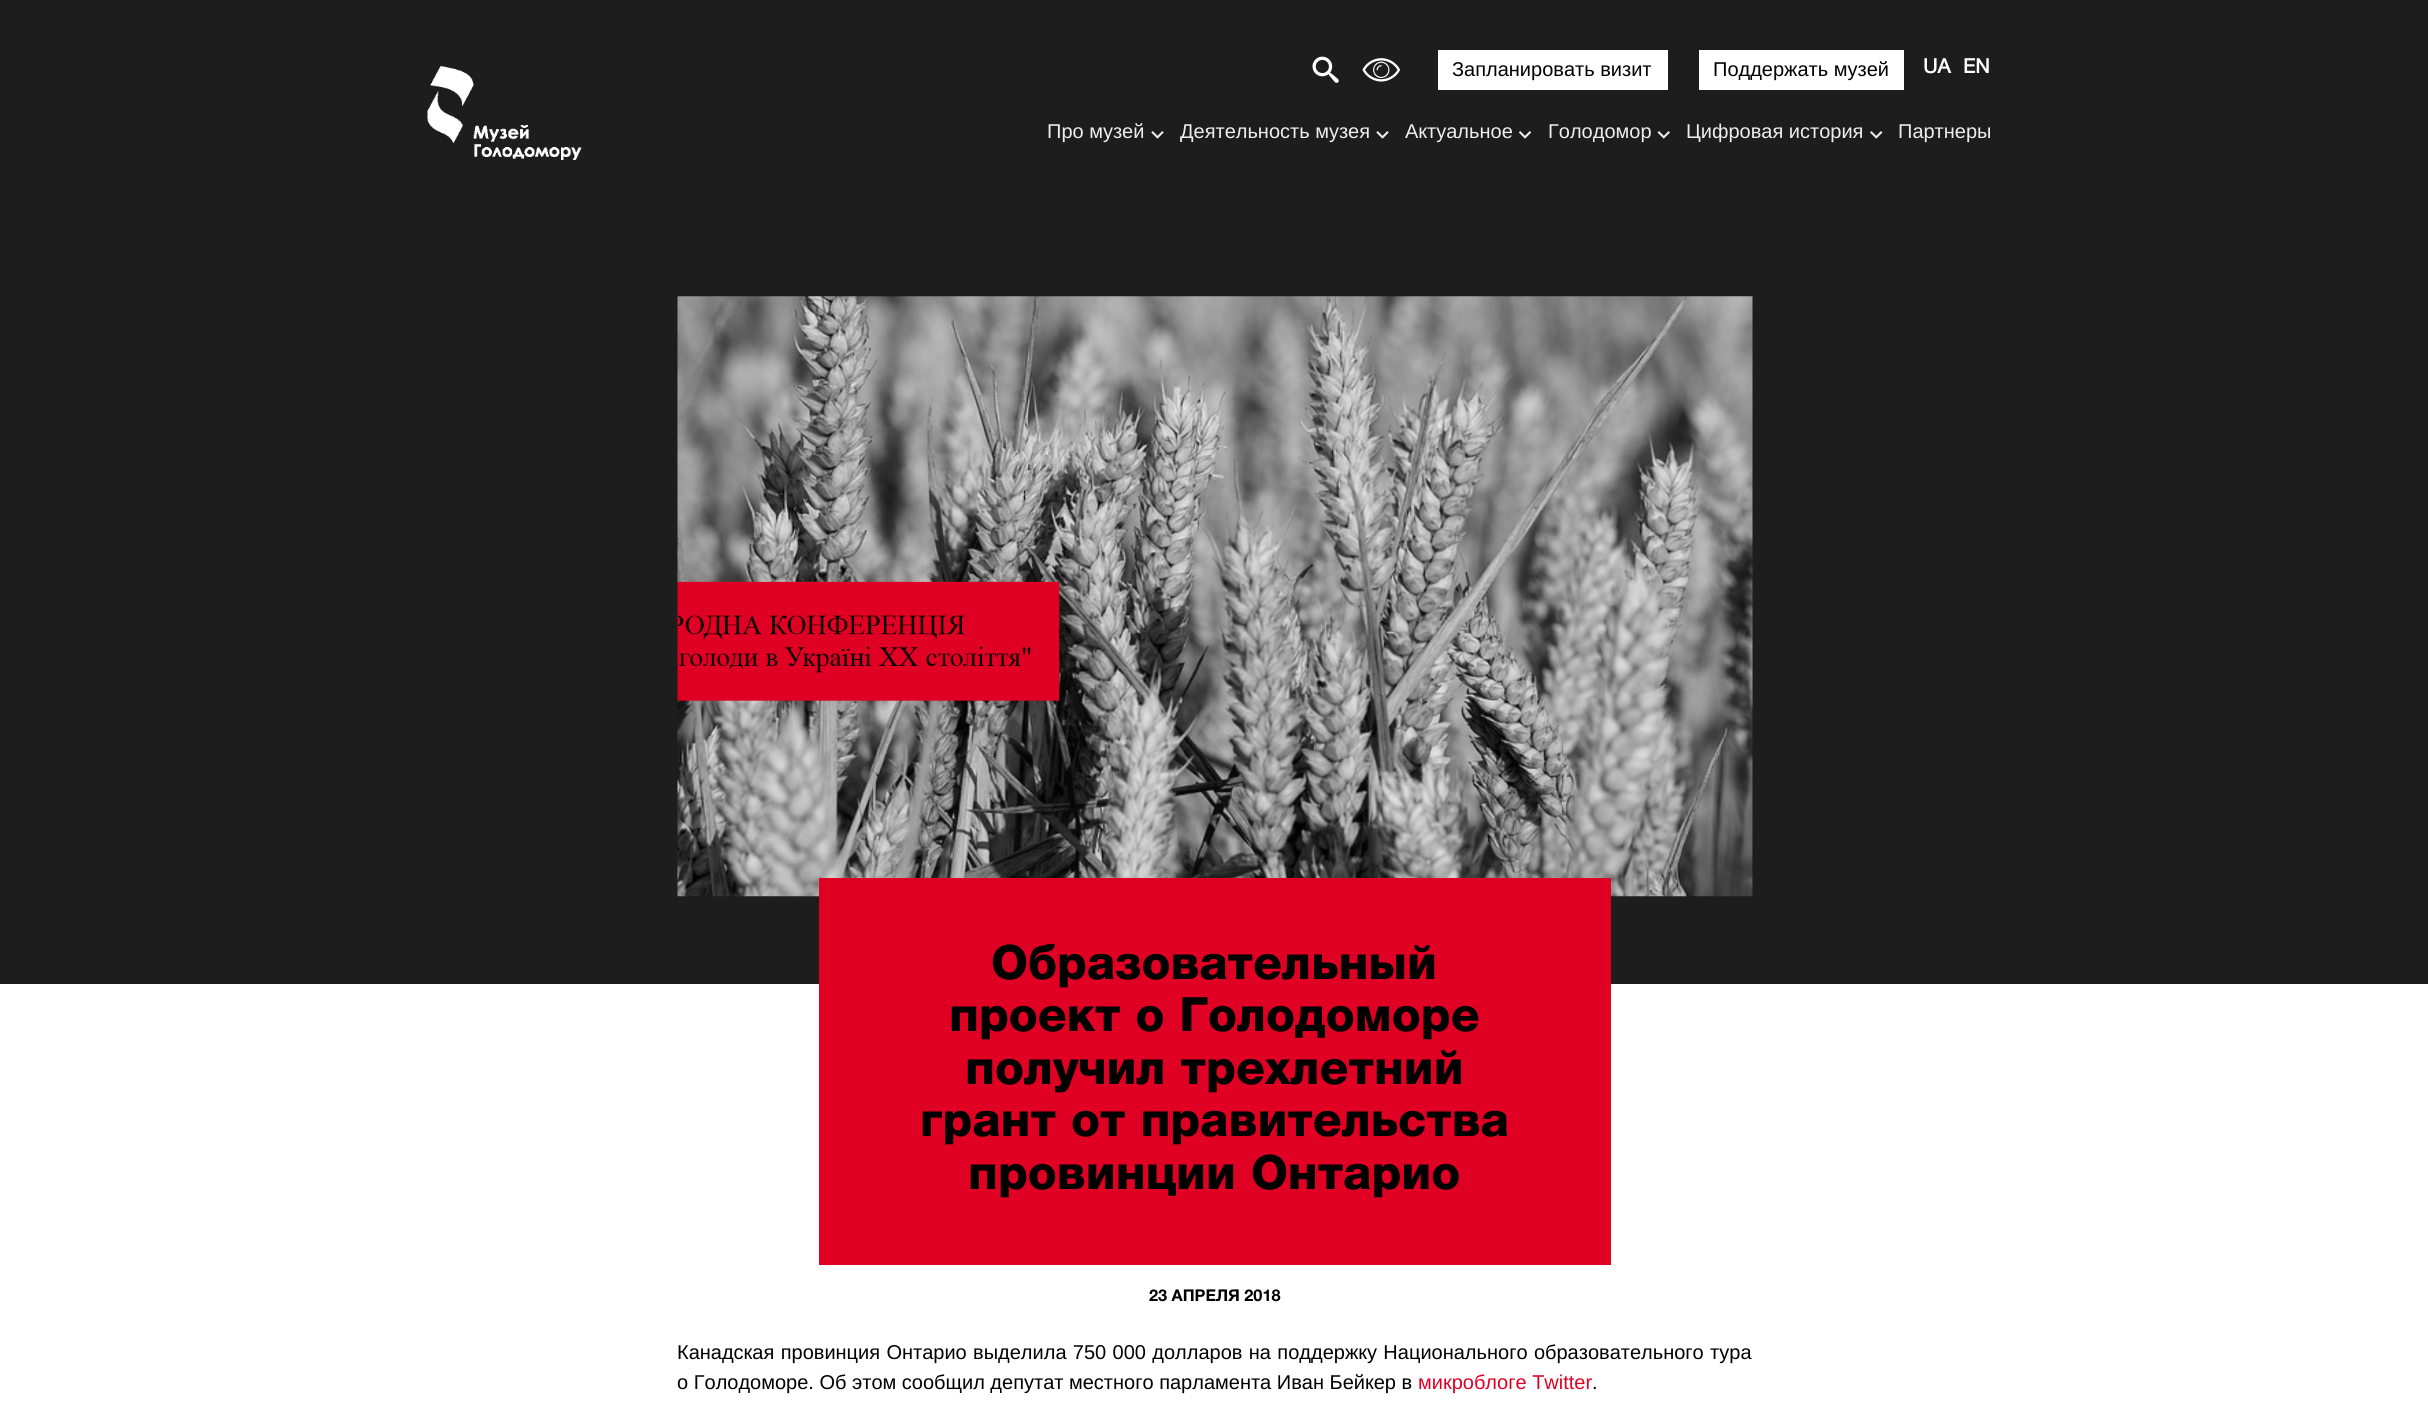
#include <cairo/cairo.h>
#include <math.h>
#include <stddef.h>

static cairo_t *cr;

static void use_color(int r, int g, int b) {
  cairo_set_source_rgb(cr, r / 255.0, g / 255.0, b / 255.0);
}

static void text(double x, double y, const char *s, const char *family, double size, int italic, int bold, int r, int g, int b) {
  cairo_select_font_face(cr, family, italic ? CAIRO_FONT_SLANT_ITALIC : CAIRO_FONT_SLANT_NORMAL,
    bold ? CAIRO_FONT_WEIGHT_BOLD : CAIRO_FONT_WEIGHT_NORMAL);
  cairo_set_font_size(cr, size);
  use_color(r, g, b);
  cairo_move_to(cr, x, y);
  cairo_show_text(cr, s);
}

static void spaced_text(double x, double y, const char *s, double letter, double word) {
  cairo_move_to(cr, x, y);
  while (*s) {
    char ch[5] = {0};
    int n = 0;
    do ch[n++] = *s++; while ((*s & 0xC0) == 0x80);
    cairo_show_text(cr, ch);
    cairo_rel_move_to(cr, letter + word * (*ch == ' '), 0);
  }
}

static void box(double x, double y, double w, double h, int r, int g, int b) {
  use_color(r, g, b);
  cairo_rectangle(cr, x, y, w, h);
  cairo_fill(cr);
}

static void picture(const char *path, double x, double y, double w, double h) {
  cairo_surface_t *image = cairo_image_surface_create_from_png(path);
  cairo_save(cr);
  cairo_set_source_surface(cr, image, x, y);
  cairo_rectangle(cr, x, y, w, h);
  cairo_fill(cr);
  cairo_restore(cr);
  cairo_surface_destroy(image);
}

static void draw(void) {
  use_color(29, 29, 29);
  cairo_paint(cr);
  picture("img_01.png", 1312, 56, 27, 27);
  picture("img_02.png", 1362, 58, 38, 24);
  box(1438, 50, 230, 40, 255, 255, 255);
  box(1699, 50, 205, 40, 255, 255, 255);
  picture("img_03.png", 427, 66, 155, 94);
  picture("img_04.png", 1151, 131, 13, 8);
  picture("img_04.png", 1376, 131, 13, 8);
  picture("img_05.png", 1518, 131, 14, 8);
  picture("img_06.png", 1657, 131, 13, 8);
  picture("img_07.png", 1870, 131, 13, 8);
  box(0, 984, 2428, 421, 255, 255, 255);
  picture("img_08.png", 677, 296, 1076, 601);
  box(819, 878, 792, 387, 223, 0, 35);
  text(1452, 76, "Запланировать визит", "Liberation Sans", 20, 0, 0, 0, 0, 0);
  text(1713, 76, "Поддержать музей", "Liberation Sans", 20, 0, 0, 0, 0, 0);
  text(1923, 73, "UA", "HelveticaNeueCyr", 20, 0, 1, 255, 255, 255);
  text(1963, 73, "EN", "HelveticaNeueCyr", 20, 0, 1, 255, 255, 255);
  text(1047, 138, "Про музей", "Liberation Sans", 20, 0, 0, 238, 238, 238);
  text(1180, 138, "Деятельность музея", "Liberation Sans", 20, 0, 0, 238, 238, 238);
  text(1405, 138, "Актуальное", "Liberation Sans", 20, 0, 0, 238, 238, 238);
  text(1548, 138, "Голодомор", "Liberation Sans", 20, 0, 0, 238, 238, 238);
  text(1686, 138, "Цифровая история", "Liberation Sans", 20, 0, 0, 238, 238, 238);
  text(1898, 138, "Партнеры", "Liberation Sans", 20, 0, 0, 238, 238, 238);
  text(991, 979, "Образовательный", "HelveticaNeueCyr Black", 47.5, 0, 0, 0, 0, 0);
  text(949, 1031, "проект о Голодоморе", "HelveticaNeueCyr Black", 47.5, 0, 0, 0, 0, 0);
  text(965, 1084, "получил трехлетний", "HelveticaNeueCyr Black", 47.5, 0, 0, 0, 0, 0);
  text(920, 1136, "грант от правительства", "HelveticaNeueCyr Black", 47.5, 0, 0, 0, 0, 0);
  text(968, 1189, "провинции Онтарио", "HelveticaNeueCyr Black", 47.5, 0, 0, 0, 0, 0);
  text(1149, 1301, "23 АПРЕЛЯ 2018", "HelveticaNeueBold", 16.25, 0, 1, 0, 0, 0);
  cairo_select_font_face(cr, "Liberation Sans", CAIRO_FONT_SLANT_NORMAL, CAIRO_FONT_WEIGHT_NORMAL);
  cairo_set_font_size(cr, 20);
  spaced_text(677, 1359, "Канадская провинция Онтарио выделила 750 000 долларов на поддержку Национального образовательного тура", 0, 0.8);
  text(677, 1389, "о Голодоморе. Об этом сообщил депутат местного парламента Иван Бейкер в", "Liberation Sans", 20, 0, 0, 0, 0, 0);
  text(1418, 1389, "микроблоге Twitter", "Liberation Sans", 20, 0, 0, 223, 0, 35);
  text(1592, 1389, ".", "Liberation Sans", 20, 0, 0, 0, 0, 0);
}

int main(void) {
  cairo_surface_t *surface = cairo_image_surface_create(CAIRO_FORMAT_RGB24, 2428, 1405);
  cr = cairo_create(surface);
  cairo_font_options_t *options = cairo_font_options_create();
  cairo_font_options_set_hint_metrics(options, CAIRO_HINT_METRICS_OFF);
  cairo_font_options_set_hint_style(options, CAIRO_HINT_STYLE_NONE);
  cairo_set_font_options(cr, options);
  cairo_set_miter_limit(cr, 4);
  draw();
  cairo_surface_write_to_png(surface, "out.png");
  cairo_font_options_destroy(options);
  cairo_destroy(cr);
  cairo_surface_destroy(surface);
  return 0;
}
